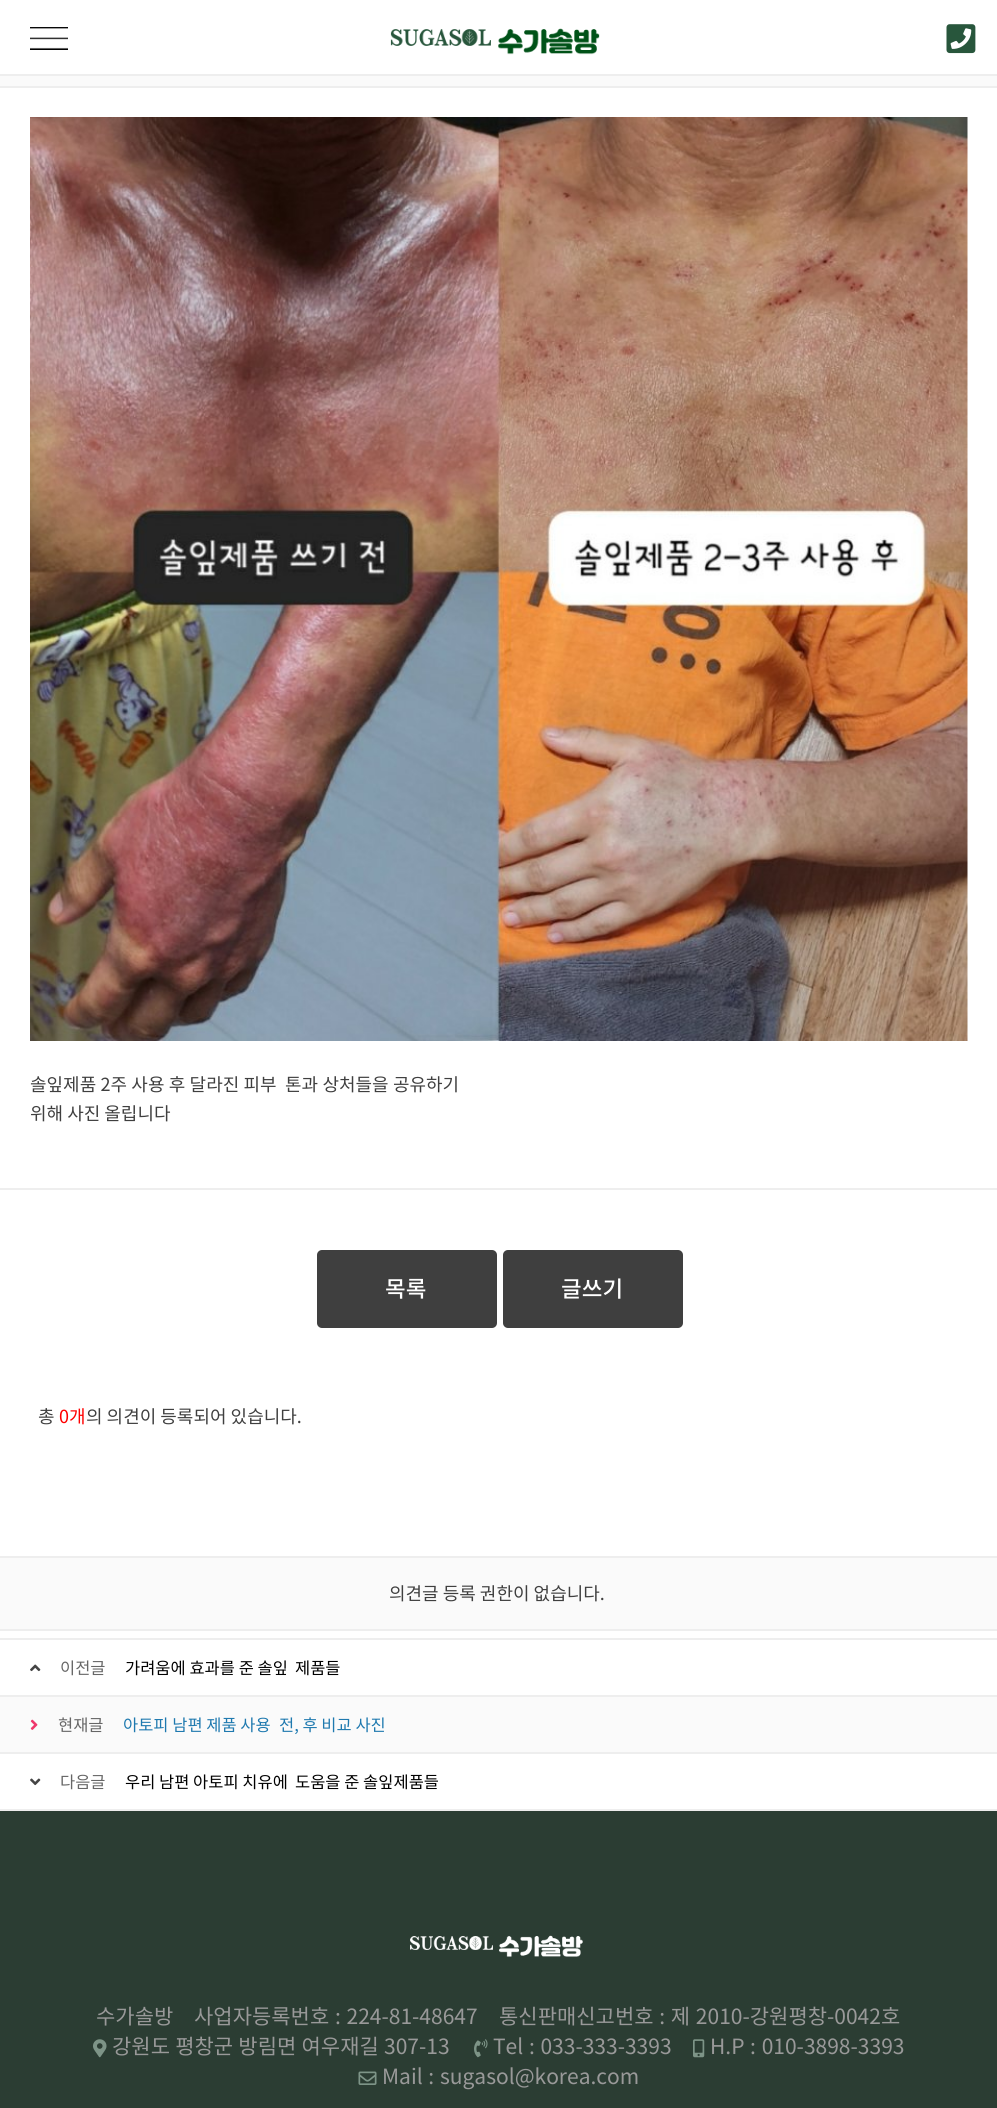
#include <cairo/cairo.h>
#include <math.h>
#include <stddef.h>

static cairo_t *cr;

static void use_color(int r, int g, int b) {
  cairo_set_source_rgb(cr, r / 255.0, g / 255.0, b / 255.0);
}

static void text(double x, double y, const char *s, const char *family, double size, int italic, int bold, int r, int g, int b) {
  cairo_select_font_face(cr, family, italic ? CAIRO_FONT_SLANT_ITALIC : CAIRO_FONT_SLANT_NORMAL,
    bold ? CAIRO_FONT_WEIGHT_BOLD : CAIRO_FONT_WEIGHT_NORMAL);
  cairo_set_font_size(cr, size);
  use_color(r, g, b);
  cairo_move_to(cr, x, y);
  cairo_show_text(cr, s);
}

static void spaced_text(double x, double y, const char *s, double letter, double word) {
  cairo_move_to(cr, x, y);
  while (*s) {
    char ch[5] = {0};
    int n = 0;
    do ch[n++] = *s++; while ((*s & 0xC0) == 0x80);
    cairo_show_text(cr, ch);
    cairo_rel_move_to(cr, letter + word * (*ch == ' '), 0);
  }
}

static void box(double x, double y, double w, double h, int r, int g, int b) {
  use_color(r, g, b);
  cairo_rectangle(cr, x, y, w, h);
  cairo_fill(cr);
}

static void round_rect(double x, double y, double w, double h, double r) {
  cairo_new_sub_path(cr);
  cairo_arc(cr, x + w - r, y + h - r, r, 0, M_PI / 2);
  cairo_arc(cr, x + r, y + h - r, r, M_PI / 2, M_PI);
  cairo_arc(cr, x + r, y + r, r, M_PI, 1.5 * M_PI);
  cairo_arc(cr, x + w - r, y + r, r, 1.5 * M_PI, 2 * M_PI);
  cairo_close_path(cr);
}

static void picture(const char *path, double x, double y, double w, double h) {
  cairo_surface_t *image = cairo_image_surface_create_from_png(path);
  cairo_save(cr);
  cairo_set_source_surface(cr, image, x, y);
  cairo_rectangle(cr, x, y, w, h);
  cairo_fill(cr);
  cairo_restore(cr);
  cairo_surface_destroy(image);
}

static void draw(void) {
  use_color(255, 255, 255);
  cairo_paint(cr);
  box(0, 74, 997, 2, 238, 238, 238);
  picture("img_01.png", 30, 27, 38, 23);
  picture("img_02.png", 390, 28, 210, 27);
  picture("img_03.png", 946, 24, 30, 30);
  box(0, 1188, 997, 2, 238, 238, 238);
  box(0, 86, 997, 2, 238, 238, 238);
  box(0, 76, 997, 10, 250, 250, 250);
  picture("img_04.png", 30, 117, 938, 924);
  use_color(63, 63, 63);
  round_rect(317, 1250, 180, 78, 5);
  cairo_fill(cr);
  round_rect(503, 1250, 180, 78, 5);
  cairo_fill(cr);
  box(0, 1558, 997, 71, 250, 250, 250);
  box(0, 1556, 997, 2, 238, 238, 238);
  box(0, 1629, 997, 2, 238, 238, 238);
  box(0, 1638, 997, 2, 238, 238, 238);
  box(0, 1695, 997, 2, 238, 238, 238);
  picture("img_05.png", 30, 1664, 11, 8);
  box(0, 1697, 997, 55, 250, 250, 250);
  box(0, 1752, 997, 2, 238, 238, 238);
  picture("img_06.png", 30, 1719, 8, 11);
  box(0, 1809, 997, 2, 238, 238, 238);
  picture("img_07.png", 30, 1778, 11, 8);
  box(0, 1811, 997, 297, 43, 61, 51);
  picture("img_08.png", 410, 1935, 173, 22);
  picture("img_09.png", 93, 2039, 14, 19);
  picture("img_10.png", 474, 2039, 14, 19);
  picture("img_11.png", 693, 2039, 12, 19);
  picture("img_12.png", 358, 2071, 19, 14);
  cairo_select_font_face(cr, "Noto Sans KR", CAIRO_FONT_SLANT_NORMAL, CAIRO_FONT_WEIGHT_NORMAL);
  cairo_set_font_size(cr, 18);
  use_color(63, 63, 63);
  spaced_text(30, 1091, "솔잎제품 2주 사용 후 달라진 피부", 0, 0.25);
  spaced_text(285, 1091, "톤과 상처들을 공유하기", 0, 0.25);
  text(30, 1120, "위해 사진 올립니다", "Noto Sans KR", 18, 0, 0, 63, 63, 63);
  text(385, 1297, "목록", "Noto Sans KR Medium", 22.5, 0, 0, 255, 255, 255);
  text(561, 1297, "글쓰기", "Noto Sans KR Medium", 22.5, 0, 0, 255, 255, 255);
  text(38, 1423, "총", "Noto Sans KR", 18, 0, 0, 63, 63, 63);
  text(59, 1423, "0개", "Noto Sans KR", 18, 0, 0, 255, 0, 0);
  text(86, 1423, "의 의견이 등록되어 있습니다.", "Noto Sans KR", 18, 0, 0, 63, 63, 63);
  text(389, 1600, "의견글 등록 권한이 없습니다.", "Noto Sans KR", 18, 0, 0, 63, 63, 63);
  text(60, 1674, "이전글", "Noto Sans KR", 16.5, 0, 0, 102, 102, 102);
  text(125, 1674, "가려움에 효과를 준 솔잎", "Noto Sans KR", 16.5, 0, 0, 0, 0, 0);
  text(295, 1674, "제품들", "Noto Sans KR", 16.5, 0, 0, 0, 0, 0);
  text(58, 1731, "현재글", "Noto Sans KR", 16.5, 0, 0, 102, 102, 102);
  text(123, 1731, "아토피 남편 제품 사용", "Noto Sans KR", 16.5, 0, 0, 30, 121, 175);
  text(279, 1731, "전, 후 비교 사진", "Noto Sans KR", 16.5, 0, 0, 30, 121, 175);
  text(60, 1788, "다음글", "Noto Sans KR", 16.5, 0, 0, 102, 102, 102);
  text(125, 1788, "우리 남편 아토피 치유에", "Noto Sans KR", 16.5, 0, 0, 0, 0, 0);
  text(295, 1788, "도움을 준 솔잎제품들", "Noto Sans KR", 16.5, 0, 0, 0, 0, 0);
  text(96, 2024, "수가솔방", "Noto Sans KR", 21, 0, 0, 153, 153, 153);
  spaced_text(194, 2024, "사업자등록번호 : 224-81-48647", 0, 1);
  spaced_text(499, 2024, "통신판매신고번호 : 제 2010-강원평창-0042호", 0, 1);
  spaced_text(112, 2054, "강원도 평창군 방림면 여우재길 307-13", 0, 0.5);
  spaced_text(493, 2054, "Tel : 033-333-3393", 0, 1);
  spaced_text(710, 2054, "H.P : 010-3898-3393", 0, 1);
  spaced_text(382, 2084, "Mail : sugasol@korea.com", 0, 1);
}

int main(void) {
  cairo_surface_t *surface = cairo_image_surface_create(CAIRO_FORMAT_RGB24, 997, 2108);
  cr = cairo_create(surface);
  cairo_font_options_t *options = cairo_font_options_create();
  cairo_font_options_set_hint_metrics(options, CAIRO_HINT_METRICS_OFF);
  cairo_font_options_set_hint_style(options, CAIRO_HINT_STYLE_NONE);
  cairo_set_font_options(cr, options);
  cairo_set_miter_limit(cr, 4);
  draw();
  cairo_surface_write_to_png(surface, "out.png");
  cairo_font_options_destroy(options);
  cairo_destroy(cr);
  cairo_surface_destroy(surface);
  return 0;
}
